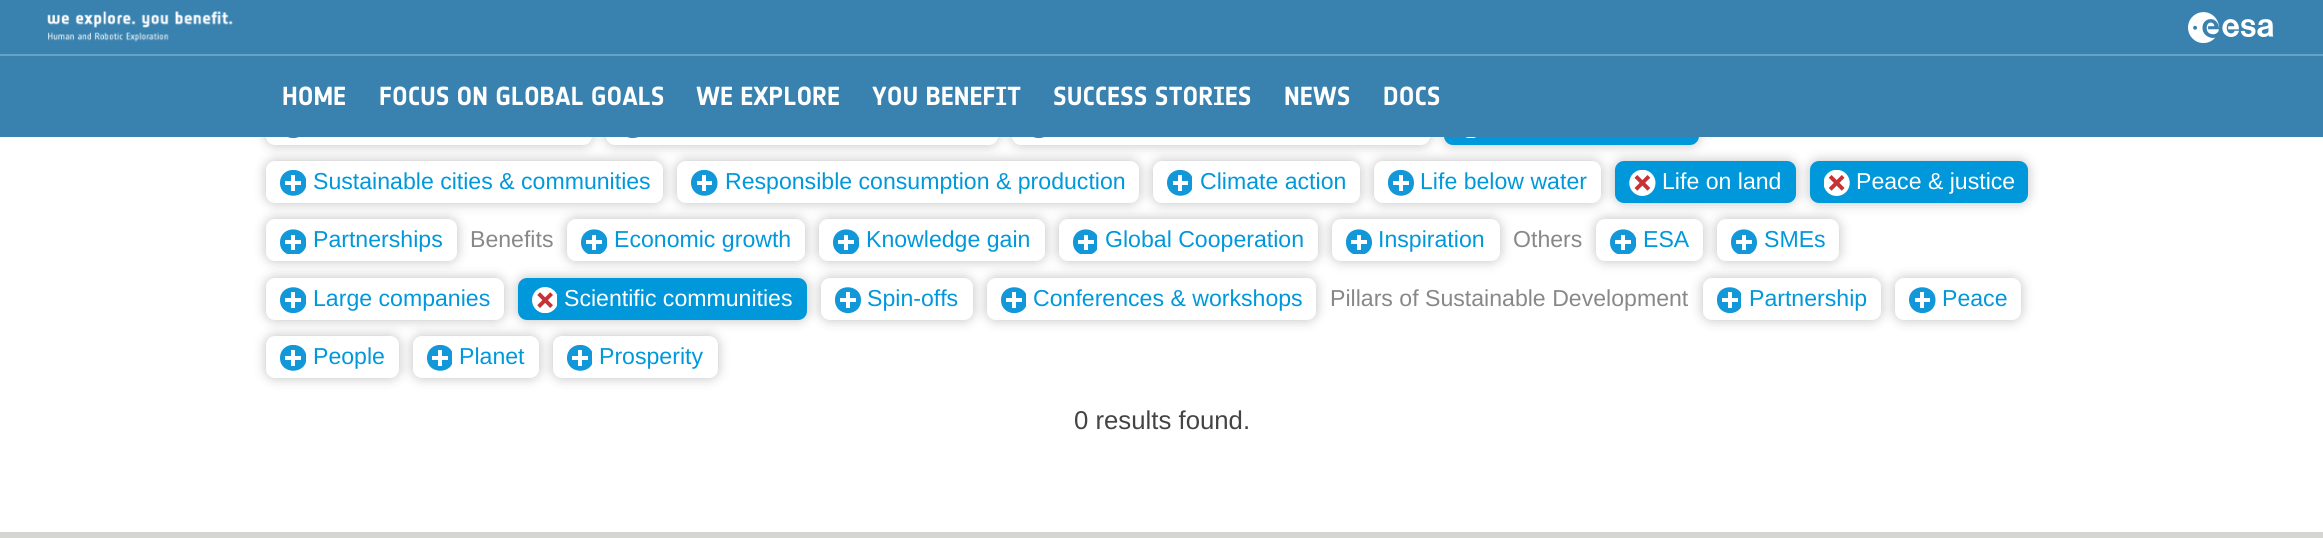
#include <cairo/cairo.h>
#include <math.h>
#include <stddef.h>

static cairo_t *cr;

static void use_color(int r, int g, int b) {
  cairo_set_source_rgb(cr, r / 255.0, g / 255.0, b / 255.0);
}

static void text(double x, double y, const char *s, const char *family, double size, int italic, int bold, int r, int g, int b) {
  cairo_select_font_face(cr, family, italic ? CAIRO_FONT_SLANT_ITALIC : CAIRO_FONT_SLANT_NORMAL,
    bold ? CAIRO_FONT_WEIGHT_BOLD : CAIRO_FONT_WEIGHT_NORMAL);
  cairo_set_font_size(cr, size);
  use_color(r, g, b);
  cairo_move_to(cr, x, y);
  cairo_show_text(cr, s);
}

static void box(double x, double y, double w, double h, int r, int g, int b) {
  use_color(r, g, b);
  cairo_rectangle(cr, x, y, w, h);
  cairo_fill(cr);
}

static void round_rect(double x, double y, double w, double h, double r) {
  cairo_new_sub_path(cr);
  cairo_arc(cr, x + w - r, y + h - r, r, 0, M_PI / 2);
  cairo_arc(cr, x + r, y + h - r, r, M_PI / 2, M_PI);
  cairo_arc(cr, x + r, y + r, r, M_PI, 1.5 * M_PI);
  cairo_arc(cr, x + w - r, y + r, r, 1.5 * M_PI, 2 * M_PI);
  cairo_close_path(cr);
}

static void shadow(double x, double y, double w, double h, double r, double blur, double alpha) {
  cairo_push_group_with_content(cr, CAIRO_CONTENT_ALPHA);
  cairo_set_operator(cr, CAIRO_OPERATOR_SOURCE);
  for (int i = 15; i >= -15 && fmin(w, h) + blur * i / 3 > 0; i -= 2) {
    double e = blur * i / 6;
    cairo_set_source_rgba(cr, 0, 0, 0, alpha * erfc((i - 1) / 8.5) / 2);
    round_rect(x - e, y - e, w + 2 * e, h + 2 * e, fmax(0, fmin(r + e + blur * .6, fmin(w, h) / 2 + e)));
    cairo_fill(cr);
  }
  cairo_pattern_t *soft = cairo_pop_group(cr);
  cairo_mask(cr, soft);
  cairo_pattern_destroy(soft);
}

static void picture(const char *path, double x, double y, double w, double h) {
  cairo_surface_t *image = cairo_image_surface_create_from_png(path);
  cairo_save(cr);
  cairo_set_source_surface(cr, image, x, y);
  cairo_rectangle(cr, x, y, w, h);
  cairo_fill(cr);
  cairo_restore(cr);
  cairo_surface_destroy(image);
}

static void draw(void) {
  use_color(255, 255, 255);
  cairo_paint(cr);
  box(0, 0, 2323, 54, 57, 130, 175);
  picture("img_01.png", 47, 11, 186, 31);
  picture("img_02.png", 2188, 12, 86, 32);
  use_color(0, 0, 0);
  shadow(266, 103, 326, 42, 9, 6, 0.25);
  use_color(255, 255, 255);
  round_rect(266, 103, 326, 42, 9);
  cairo_fill(cr);
  use_color(18, 151, 216);
  cairo_new_path(cr);
  cairo_move_to(cr, 306.5, 125);
  cairo_curve_to(cr, 306.5, 142.5, 280, 142.5, 280, 125);
  cairo_curve_to(cr, 280, 108, 306.5, 108, 306.5, 125);
  cairo_close_path(cr);
  cairo_fill(cr);
  use_color(0, 0, 0);
  shadow(606, 103, 392, 42, 9, 6, 0.25);
  use_color(255, 255, 255);
  round_rect(606, 103, 392, 42, 9);
  cairo_fill(cr);
  use_color(18, 151, 216);
  cairo_new_path(cr);
  cairo_move_to(cr, 646, 125);
  cairo_curve_to(cr, 646, 142.5, 619.5, 142.5, 619.5, 125);
  cairo_curve_to(cr, 619.5, 108, 646, 108, 646, 125);
  cairo_close_path(cr);
  cairo_fill(cr);
  use_color(0, 0, 0);
  shadow(1012, 103, 418, 42, 9, 6, 0.25);
  use_color(255, 255, 255);
  round_rect(1012, 103, 418, 42, 9);
  cairo_fill(cr);
  use_color(18, 151, 216);
  cairo_new_path(cr);
  cairo_move_to(cr, 1052, 125);
  cairo_curve_to(cr, 1052, 142.5, 1025.5, 142.5, 1025.5, 125);
  cairo_curve_to(cr, 1025.5, 108, 1052, 108, 1052, 125);
  cairo_close_path(cr);
  cairo_fill(cr);
  use_color(0, 0, 0);
  shadow(1444, 103, 255, 42, 9, 6, 0.25);
  use_color(0, 152, 219);
  round_rect(1444, 103, 255, 42, 9);
  cairo_fill(cr);
  box(0, 56, 2323, 81, 57, 130, 175);
  box(0, 54, 2323, 2, 107, 161, 195);
  picture("img_03.png", 1465, 137, 12, 1);
  use_color(0, 0, 0);
  shadow(266, 161, 397, 42, 9, 6, 0.25);
  use_color(255, 255, 255);
  round_rect(266, 161, 397, 42, 9);
  cairo_fill(cr);
  cairo_save(cr);
  cairo_rectangle(cr, 280, 170, 26, 26);
  cairo_clip(cr);
  use_color(18, 151, 216);
  cairo_new_path(cr);
  cairo_move_to(cr, 306.5, 183);
  cairo_curve_to(cr, 306.5, 200, 280, 200, 280, 183);
  cairo_curve_to(cr, 280, 165.5, 306.5, 165.5, 306.5, 183);
  cairo_close_path(cr);
  cairo_fill(cr);
  cairo_restore(cr);
  box(291, 175, 4, 16, 255, 255, 255);
  box(285, 181, 16, 4, 255, 255, 255);
  use_color(0, 0, 0);
  shadow(677, 161, 462, 42, 9, 6, 0.25);
  use_color(255, 255, 255);
  round_rect(677, 161, 462, 42, 9);
  cairo_fill(cr);
  use_color(18, 151, 216);
  cairo_new_path(cr);
  cairo_move_to(cr, 717.5, 183);
  cairo_curve_to(cr, 717.5, 200, 691.5, 200, 691, 183);
  cairo_curve_to(cr, 691, 165.5, 717.5, 165.5, 717.5, 183);
  cairo_close_path(cr);
  cairo_fill(cr);
  box(702, 175, 4, 16, 255, 255, 255);
  box(697, 181, 15, 4, 255, 255, 255);
  use_color(0, 0, 0);
  shadow(1153, 161, 207, 42, 9, 6, 0.25);
  use_color(255, 255, 255);
  round_rect(1153, 161, 207, 42, 9);
  cairo_fill(cr);
  cairo_save(cr);
  cairo_rectangle(cr, 1167, 170, 25, 26);
  cairo_clip(cr);
  use_color(18, 151, 216);
  cairo_new_path(cr);
  cairo_move_to(cr, 1193.5, 183);
  cairo_curve_to(cr, 1193.5, 200, 1167.5, 200, 1167, 183);
  cairo_curve_to(cr, 1167, 165.5, 1193.5, 165.5, 1193.5, 183);
  cairo_close_path(cr);
  cairo_fill(cr);
  cairo_restore(cr);
  box(1178, 175, 4, 16, 255, 255, 255);
  box(1173, 181, 15, 4, 255, 255, 255);
  use_color(0, 0, 0);
  shadow(1374, 161, 227, 42, 9, 6, 0.25);
  use_color(255, 255, 255);
  round_rect(1374, 161, 227, 42, 9);
  cairo_fill(cr);
  use_color(18, 151, 216);
  cairo_new_path(cr);
  cairo_move_to(cr, 1414, 183);
  cairo_curve_to(cr, 1414, 200, 1388, 200, 1388, 183);
  cairo_curve_to(cr, 1387.5, 165.5, 1414, 165.5, 1414, 183);
  cairo_close_path(cr);
  cairo_fill(cr);
  box(1399, 175, 4, 16, 255, 255, 255);
  box(1393, 181, 16, 4, 255, 255, 255);
  use_color(0, 0, 0);
  shadow(1615, 161, 181, 42, 9, 6, 0.25);
  use_color(0, 152, 219);
  round_rect(1615, 161, 181, 42, 9);
  cairo_fill(cr);
  picture("img_04.png", 1629, 170, 27, 26);
  use_color(0, 0, 0);
  shadow(1810, 161, 218, 42, 9, 6, 0.25);
  use_color(0, 152, 219);
  round_rect(1810, 161, 218, 42, 9);
  cairo_fill(cr);
  picture("img_05.png", 1824, 170, 26, 26);
  use_color(0, 0, 0);
  shadow(266, 219, 191, 42, 9, 6, 0.25);
  use_color(255, 255, 255);
  round_rect(266, 219, 191, 42, 9);
  cairo_fill(cr);
  cairo_save(cr);
  cairo_rectangle(cr, 280, 229, 26, 25);
  cairo_clip(cr);
  use_color(18, 151, 216);
  cairo_new_path(cr);
  cairo_move_to(cr, 306.5, 242.5);
  cairo_curve_to(cr, 306.5, 259.5, 280, 259.5, 280, 242.5);
  cairo_curve_to(cr, 280, 225, 306.5, 225, 306.5, 242.5);
  cairo_close_path(cr);
  cairo_fill(cr);
  cairo_restore(cr);
  box(291, 235, 4, 15, 255, 255, 255);
  box(285, 240, 16, 4, 255, 255, 255);
  use_color(0, 0, 0);
  shadow(567, 219, 238, 42, 9, 6, 0.25);
  use_color(255, 255, 255);
  round_rect(567, 219, 238, 42, 9);
  cairo_fill(cr);
  cairo_save(cr);
  cairo_rectangle(cr, 581, 229, 26, 25);
  cairo_clip(cr);
  use_color(18, 151, 216);
  cairo_new_path(cr);
  cairo_move_to(cr, 607.5, 242.5);
  cairo_curve_to(cr, 607.5, 259.5, 581, 259.5, 581, 242.5);
  cairo_curve_to(cr, 581, 225, 607.5, 225, 607.5, 242.5);
  cairo_close_path(cr);
  cairo_fill(cr);
  cairo_restore(cr);
  box(592, 235, 4, 15, 255, 255, 255);
  box(586, 240, 16, 4, 255, 255, 255);
  use_color(0, 0, 0);
  shadow(819, 219, 226, 42, 9, 6, 0.25);
  use_color(255, 255, 255);
  round_rect(819, 219, 226, 42, 9);
  cairo_fill(cr);
  cairo_save(cr);
  cairo_rectangle(cr, 833, 229, 26, 25);
  cairo_clip(cr);
  use_color(18, 151, 216);
  cairo_new_path(cr);
  cairo_move_to(cr, 859.5, 242.5);
  cairo_curve_to(cr, 859.5, 259.5, 833, 259.5, 833, 242.5);
  cairo_curve_to(cr, 833, 225, 859.5, 225, 859.5, 242.5);
  cairo_close_path(cr);
  cairo_fill(cr);
  cairo_restore(cr);
  box(844, 235, 4, 15, 255, 255, 255);
  box(838, 240, 16, 4, 255, 255, 255);
  use_color(0, 0, 0);
  shadow(1059, 219, 259, 42, 9, 6, 0.25);
  use_color(255, 255, 255);
  round_rect(1059, 219, 259, 42, 9);
  cairo_fill(cr);
  cairo_save(cr);
  cairo_rectangle(cr, 1073, 229, 24, 25);
  cairo_clip(cr);
  use_color(18, 151, 216);
  cairo_new_path(cr);
  cairo_move_to(cr, 1099, 242.5);
  cairo_curve_to(cr, 1099, 259.5, 1073, 259.5, 1073, 242.5);
  cairo_curve_to(cr, 1072.5, 225, 1099, 225, 1099, 242.5);
  cairo_close_path(cr);
  cairo_fill(cr);
  cairo_restore(cr);
  box(1084, 235, 4, 15, 255, 255, 255);
  box(1078, 240, 16, 4, 255, 255, 255);
  use_color(0, 0, 0);
  shadow(1332, 219, 168, 42, 9, 6, 0.25);
  use_color(255, 255, 255);
  round_rect(1332, 219, 168, 42, 9);
  cairo_fill(cr);
  cairo_save(cr);
  cairo_rectangle(cr, 1346, 229, 26, 25);
  cairo_clip(cr);
  use_color(18, 151, 216);
  cairo_new_path(cr);
  cairo_move_to(cr, 1372, 242.5);
  cairo_curve_to(cr, 1372, 259.5, 1346, 259.5, 1346, 242.5);
  cairo_curve_to(cr, 1345.5, 225, 1372, 225, 1372, 242.5);
  cairo_close_path(cr);
  cairo_fill(cr);
  cairo_restore(cr);
  box(1357, 235, 4, 15, 255, 255, 255);
  box(1351, 240, 16, 4, 255, 255, 255);
  use_color(0, 0, 0);
  shadow(1596, 219, 107, 42, 9, 6, 0.25);
  use_color(255, 255, 255);
  round_rect(1596, 219, 107, 42, 9);
  cairo_fill(cr);
  cairo_save(cr);
  cairo_rectangle(cr, 1610, 229, 26, 25);
  cairo_clip(cr);
  use_color(18, 151, 216);
  cairo_new_path(cr);
  cairo_move_to(cr, 1636.5, 242.5);
  cairo_curve_to(cr, 1636.5, 259.5, 1610, 259.5, 1610, 242.5);
  cairo_curve_to(cr, 1610, 225, 1636.5, 225, 1636.5, 242.5);
  cairo_close_path(cr);
  cairo_fill(cr);
  cairo_restore(cr);
  box(1621, 235, 4, 15, 255, 255, 255);
  box(1615, 240, 16, 4, 255, 255, 255);
  use_color(0, 0, 0);
  shadow(1717, 219, 122, 42, 9, 6, 0.25);
  use_color(255, 255, 255);
  round_rect(1717, 219, 122, 42, 9);
  cairo_fill(cr);
  cairo_save(cr);
  cairo_rectangle(cr, 1731, 229, 26, 25);
  cairo_clip(cr);
  use_color(18, 151, 216);
  cairo_new_path(cr);
  cairo_move_to(cr, 1757, 242.5);
  cairo_curve_to(cr, 1757, 259.5, 1731, 259.5, 1731, 242.5);
  cairo_curve_to(cr, 1730.5, 225, 1757, 225, 1757, 242.5);
  cairo_close_path(cr);
  cairo_fill(cr);
  cairo_restore(cr);
  box(1742, 235, 4, 15, 255, 255, 255);
  box(1736, 240, 16, 4, 255, 255, 255);
  use_color(0, 0, 0);
  shadow(266, 278, 238, 42, 9, 6, 0.25);
  use_color(255, 255, 255);
  round_rect(266, 278, 238, 42, 9);
  cairo_fill(cr);
  cairo_save(cr);
  cairo_rectangle(cr, 280, 287, 26, 26);
  cairo_clip(cr);
  use_color(18, 151, 216);
  cairo_new_path(cr);
  cairo_move_to(cr, 306.5, 300);
  cairo_curve_to(cr, 306.5, 317.5, 280, 317.5, 280, 300);
  cairo_curve_to(cr, 280, 283, 306.5, 283, 306.5, 300);
  cairo_close_path(cr);
  cairo_fill(cr);
  cairo_restore(cr);
  box(291, 292, 4, 16, 255, 255, 255);
  box(285, 298, 16, 4, 255, 255, 255);
  use_color(0, 0, 0);
  shadow(518, 278, 289, 42, 9, 6, 0.25);
  use_color(0, 152, 219);
  round_rect(518, 278, 289, 42, 9);
  cairo_fill(cr);
  picture("img_06.png", 532, 287, 25, 26);
  use_color(0, 0, 0);
  shadow(821, 278, 152, 42, 9, 6, 0.25);
  use_color(255, 255, 255);
  round_rect(821, 278, 152, 42, 9);
  cairo_fill(cr);
  use_color(18, 151, 216);
  cairo_new_path(cr);
  cairo_move_to(cr, 861, 300);
  cairo_curve_to(cr, 861, 317.5, 835, 317.5, 835, 300);
  cairo_curve_to(cr, 834.5, 283, 861, 283, 861, 300);
  cairo_close_path(cr);
  cairo_fill(cr);
  box(846, 292, 4, 16, 255, 255, 255);
  box(840, 298, 16, 4, 255, 255, 255);
  use_color(0, 0, 0);
  shadow(987, 278, 329, 42, 9, 6, 0.25);
  use_color(255, 255, 255);
  round_rect(987, 278, 329, 42, 9);
  cairo_fill(cr);
  cairo_save(cr);
  cairo_rectangle(cr, 1001, 287, 25, 26);
  cairo_clip(cr);
  use_color(18, 151, 216);
  cairo_new_path(cr);
  cairo_move_to(cr, 1027.5, 300);
  cairo_curve_to(cr, 1027.5, 317.5, 1001, 317.5, 1001, 300);
  cairo_curve_to(cr, 1001, 283, 1027.5, 283, 1027.5, 300);
  cairo_close_path(cr);
  cairo_fill(cr);
  cairo_restore(cr);
  box(1012, 292, 4, 16, 255, 255, 255);
  box(1006, 298, 16, 4, 255, 255, 255);
  use_color(0, 0, 0);
  shadow(1703, 278, 178, 42, 9, 6, 0.25);
  use_color(255, 255, 255);
  round_rect(1703, 278, 178, 42, 9);
  cairo_fill(cr);
  cairo_save(cr);
  cairo_rectangle(cr, 1717, 287, 24, 26);
  cairo_clip(cr);
  use_color(18, 151, 216);
  cairo_new_path(cr);
  cairo_move_to(cr, 1743, 300);
  cairo_curve_to(cr, 1743, 317.5, 1717, 317.5, 1717, 300);
  cairo_curve_to(cr, 1716.5, 283, 1743, 283, 1743, 300);
  cairo_close_path(cr);
  cairo_fill(cr);
  cairo_restore(cr);
  box(1728, 292, 4, 16, 255, 255, 255);
  box(1722, 298, 16, 4, 255, 255, 255);
  use_color(0, 0, 0);
  shadow(1895, 278, 126, 42, 9, 6, 0.25);
  use_color(255, 255, 255);
  round_rect(1895, 278, 126, 42, 9);
  cairo_fill(cr);
  use_color(18, 151, 216);
  cairo_new_path(cr);
  cairo_move_to(cr, 1935.5, 300);
  cairo_curve_to(cr, 1935.5, 317.5, 1909.5, 317.5, 1909, 300);
  cairo_curve_to(cr, 1909, 283, 1935.5, 283, 1935.5, 300);
  cairo_close_path(cr);
  cairo_fill(cr);
  box(1920, 292, 4, 16, 255, 255, 255);
  box(1915, 298, 15, 4, 255, 255, 255);
  use_color(0, 0, 0);
  shadow(266, 336, 133, 42, 9, 6, 0.25);
  use_color(255, 255, 255);
  round_rect(266, 336, 133, 42, 9);
  cairo_fill(cr);
  cairo_save(cr);
  cairo_rectangle(cr, 280, 345, 26, 26);
  cairo_clip(cr);
  use_color(18, 151, 216);
  cairo_new_path(cr);
  cairo_move_to(cr, 306.5, 358);
  cairo_curve_to(cr, 306.5, 375, 280, 375, 280, 358);
  cairo_curve_to(cr, 280, 340.5, 306.5, 340.5, 306.5, 358);
  cairo_close_path(cr);
  cairo_fill(cr);
  cairo_restore(cr);
  box(291, 350, 4, 16, 255, 255, 255);
  box(285, 356, 16, 4, 255, 255, 255);
  use_color(0, 0, 0);
  shadow(413, 336, 126, 42, 9, 6, 0.25);
  use_color(255, 255, 255);
  round_rect(413, 336, 126, 42, 9);
  cairo_fill(cr);
  cairo_save(cr);
  cairo_rectangle(cr, 427, 345, 25, 26);
  cairo_clip(cr);
  use_color(18, 151, 216);
  cairo_new_path(cr);
  cairo_move_to(cr, 453.5, 358);
  cairo_curve_to(cr, 453.5, 375, 427, 375, 427, 358);
  cairo_curve_to(cr, 427, 340.5, 453.5, 340.5, 453.5, 358);
  cairo_close_path(cr);
  cairo_fill(cr);
  cairo_restore(cr);
  box(438, 350, 4, 16, 255, 255, 255);
  box(432, 356, 16, 4, 255, 255, 255);
  use_color(0, 0, 0);
  shadow(553, 336, 165, 42, 9, 6, 0.25);
  use_color(255, 255, 255);
  round_rect(553, 336, 165, 42, 9);
  cairo_fill(cr);
  cairo_save(cr);
  cairo_rectangle(cr, 567, 345, 25, 26);
  cairo_clip(cr);
  use_color(18, 151, 216);
  cairo_new_path(cr);
  cairo_move_to(cr, 593.5, 358);
  cairo_curve_to(cr, 593.5, 375, 567, 375, 567, 358);
  cairo_curve_to(cr, 567, 340.5, 593.5, 340.5, 593.5, 358);
  cairo_close_path(cr);
  cairo_fill(cr);
  cairo_restore(cr);
  box(578, 350, 4, 16, 255, 255, 255);
  box(572, 356, 16, 4, 255, 255, 255);
  box(0, 532, 2323, 6, 213, 214, 210);
  text(282, 105, "HOME", "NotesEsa", 25.75, 0, 1, 255, 255, 255);
  text(379, 105, "FOCUS ON GLOBAL GOALS", "NotesEsa", 25.75, 0, 1, 255, 255, 255);
  text(696, 105, "WE EXPLORE", "NotesEsa", 25.75, 0, 1, 255, 255, 255);
  text(872, 105, "YOU BENEFIT", "NotesEsa", 25.75, 0, 1, 255, 255, 255);
  text(1053, 105, "SUCCESS STORIES", "NotesEsa", 25.75, 0, 1, 255, 255, 255);
  text(1284, 105, "NEWS", "NotesEsa", 25.75, 0, 1, 255, 255, 255);
  text(1383, 105, "DOCS", "NotesEsa", 25.75, 0, 1, 255, 255, 255);
  text(313, 189, "Sustainable cities & communities", "Liberation Sans", 23.1, 0, 0, 0, 152, 219);
  text(725, 189, "Responsible consumption & production", "Liberation Sans", 23.1, 0, 0, 0, 152, 219);
  text(1200, 189, "Climate action", "Liberation Sans", 23.1, 0, 0, 0, 152, 219);
  text(1420, 189, "Life below water", "Liberation Sans", 23.1, 0, 0, 0, 152, 219);
  text(1662, 189, "Life on land", "Liberation Sans", 23.1, 0, 0, 255, 255, 255);
  text(1856, 189, "Peace & justice", "Liberation Sans", 23.1, 0, 0, 255, 255, 255);
  text(313, 247, "Partnerships", "Liberation Sans", 23.1, 0, 0, 0, 152, 219);
  text(470, 247, "Benefits", "Liberation Sans", 23.1, 0, 0, 136, 136, 136);
  text(614, 247, "Economic growth", "Liberation Sans", 23.1, 0, 0, 0, 152, 219);
  text(866, 247, "Knowledge gain", "Liberation Sans", 23.1, 0, 0, 0, 152, 219);
  text(1105, 247, "Global Cooperation", "Liberation Sans", 23.1, 0, 0, 0, 152, 219);
  text(1378, 247, "Inspiration", "Liberation Sans", 23.1, 0, 0, 0, 152, 219);
  text(1513, 247, "Others", "Liberation Sans", 23.1, 0, 0, 136, 136, 136);
  text(1643, 247, "ESA", "Liberation Sans", 23.1, 0, 0, 0, 152, 219);
  text(1764, 247, "SMEs", "Liberation Sans", 23.1, 0, 0, 0, 152, 219);
  text(313, 306, "Large companies", "Liberation Sans", 23.1, 0, 0, 0, 152, 219);
  text(564, 306, "Scientific communities", "Liberation Sans", 23.1, 0, 0, 255, 255, 255);
  text(867, 306, "Spin-offs", "Liberation Sans", 23.1, 0, 0, 0, 152, 219);
  text(1033, 306, "Conferences & workshops", "Liberation Sans", 23.1, 0, 0, 0, 152, 219);
  text(1330, 306, "Pillars of Sustainable Development", "Liberation Sans", 23.1, 0, 0, 136, 136, 136);
  text(1749, 306, "Partnership", "Liberation Sans", 23.1, 0, 0, 0, 152, 219);
  text(1942, 306, "Peace", "Liberation Sans", 23.1, 0, 0, 0, 152, 219);
  text(313, 364, "People", "Liberation Sans", 23.1, 0, 0, 0, 152, 219);
  text(459, 364, "Planet", "Liberation Sans", 23.1, 0, 0, 0, 152, 219);
  text(599, 364, "Prosperity", "Liberation Sans", 23.1, 0, 0, 0, 152, 219);
  text(1074, 429, "0 results found.", "Liberation Sans", 25.75, 0, 0, 68, 68, 68);
}

int main(void) {
  cairo_surface_t *surface = cairo_image_surface_create(CAIRO_FORMAT_RGB24, 2323, 538);
  cr = cairo_create(surface);
  cairo_font_options_t *options = cairo_font_options_create();
  cairo_font_options_set_hint_metrics(options, CAIRO_HINT_METRICS_OFF);
  cairo_font_options_set_hint_style(options, CAIRO_HINT_STYLE_NONE);
  cairo_set_font_options(cr, options);
  cairo_set_miter_limit(cr, 4);
  draw();
  cairo_surface_write_to_png(surface, "out.png");
  cairo_font_options_destroy(options);
  cairo_destroy(cr);
  cairo_surface_destroy(surface);
  return 0;
}
